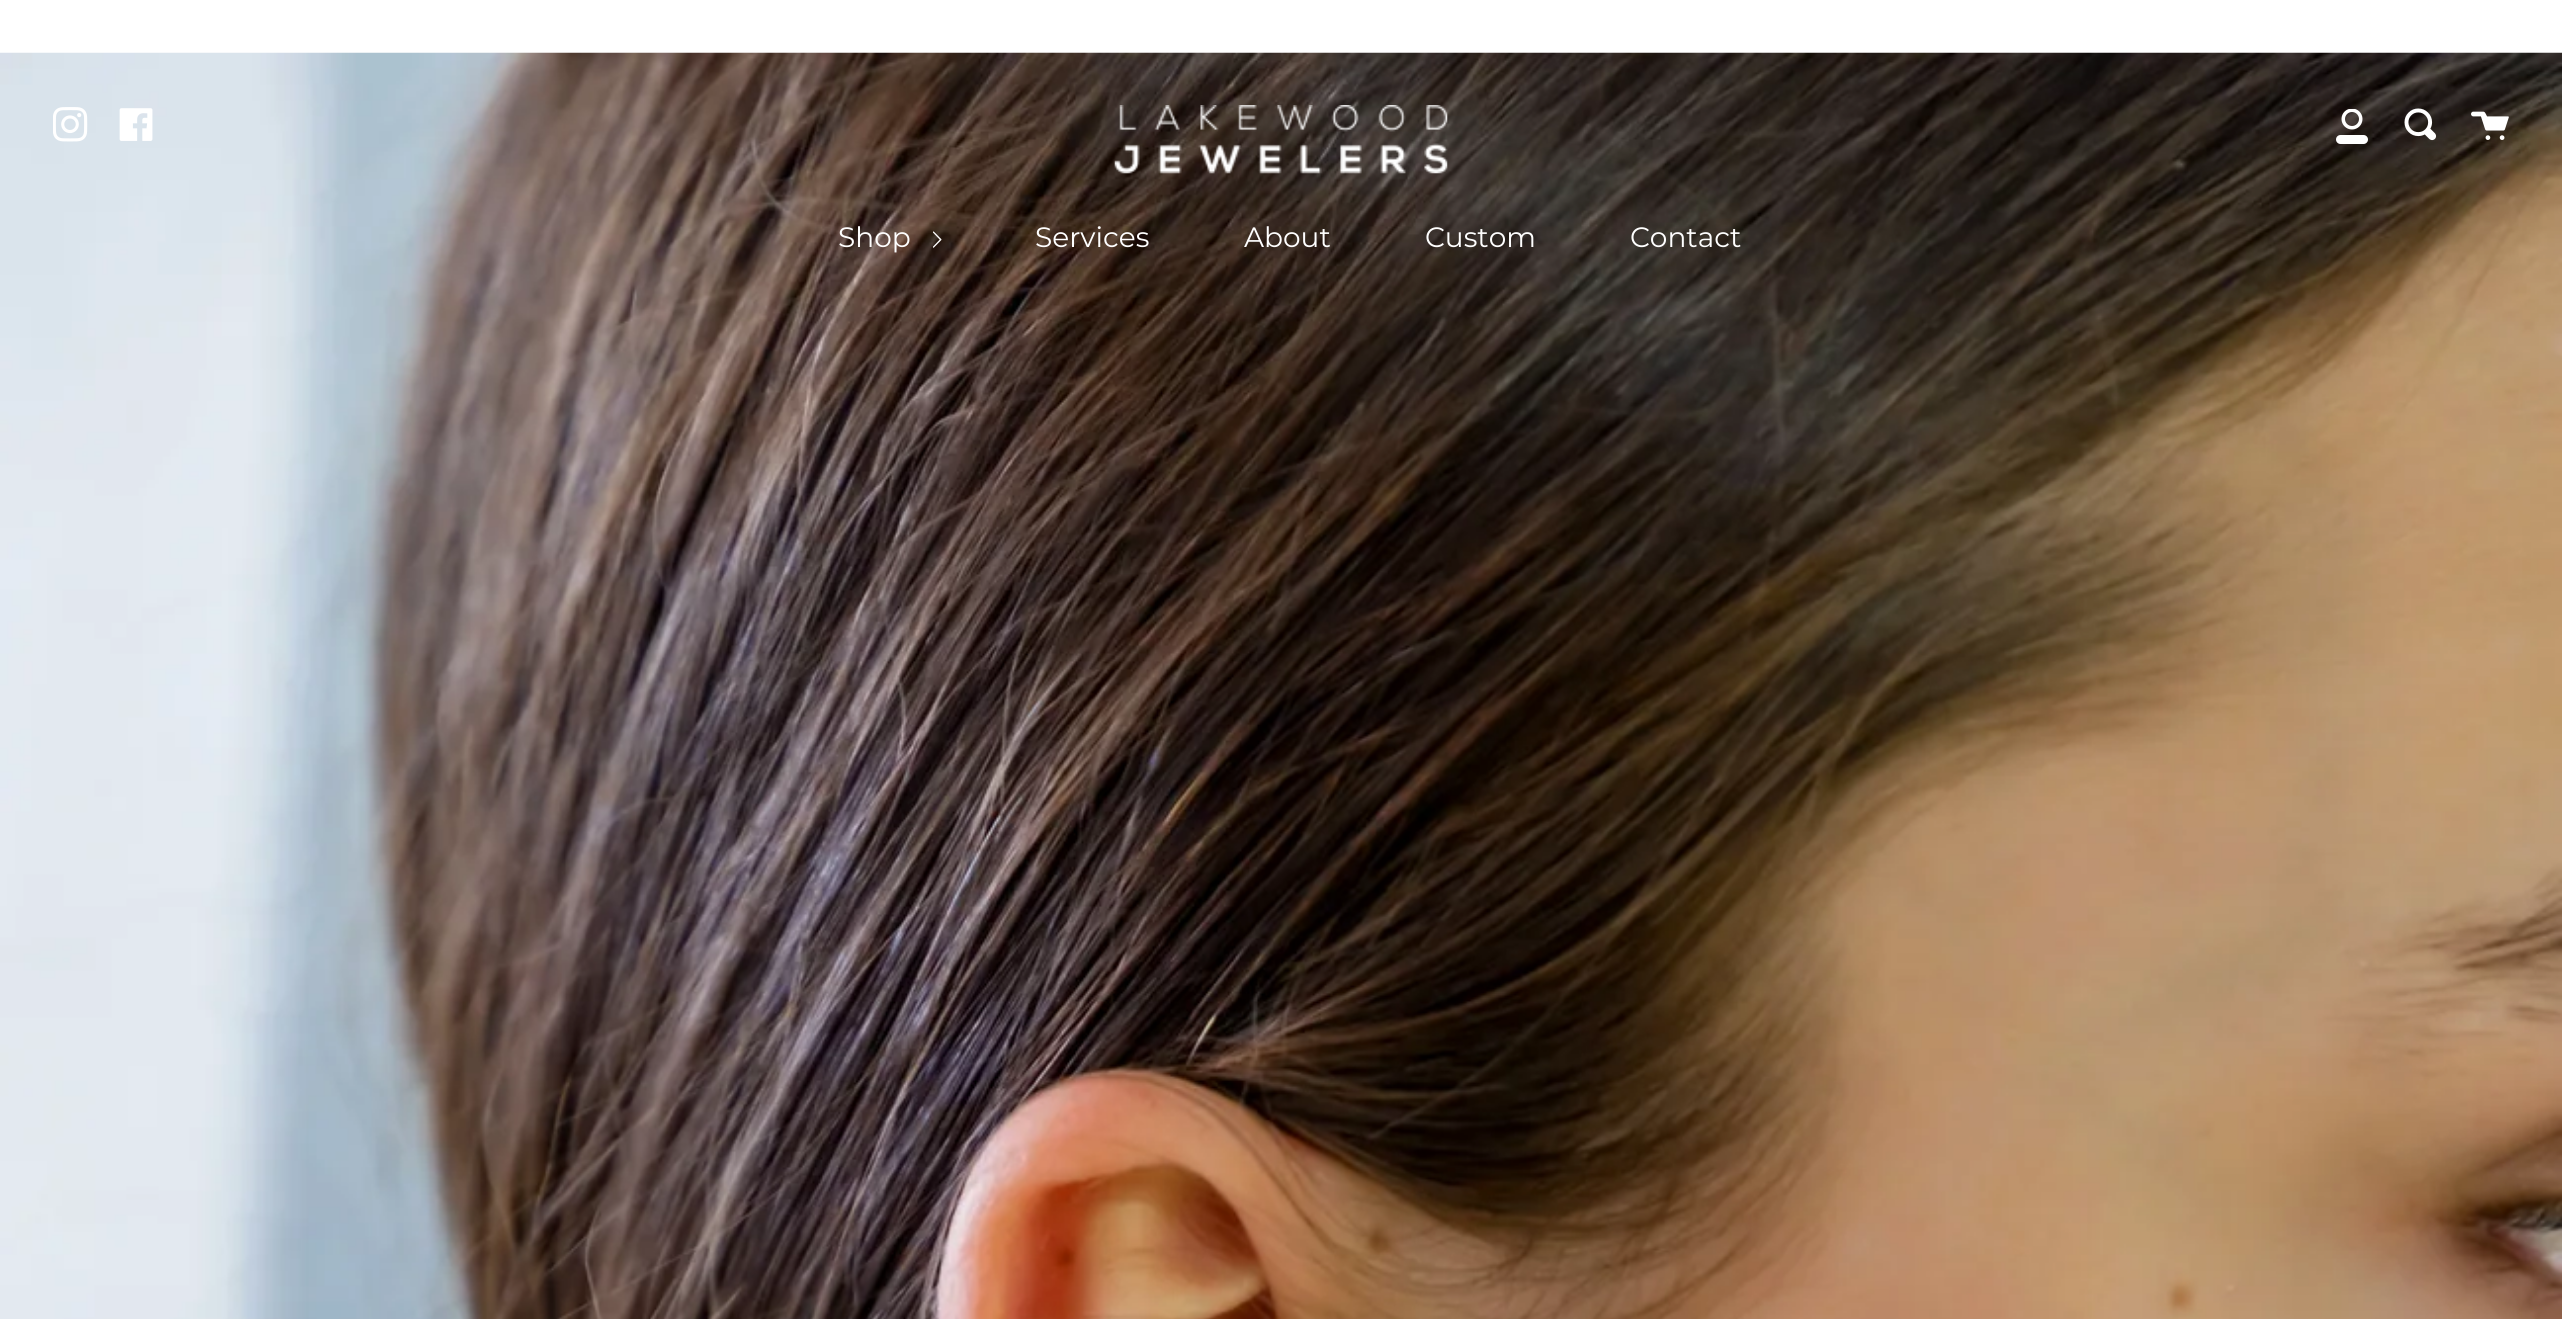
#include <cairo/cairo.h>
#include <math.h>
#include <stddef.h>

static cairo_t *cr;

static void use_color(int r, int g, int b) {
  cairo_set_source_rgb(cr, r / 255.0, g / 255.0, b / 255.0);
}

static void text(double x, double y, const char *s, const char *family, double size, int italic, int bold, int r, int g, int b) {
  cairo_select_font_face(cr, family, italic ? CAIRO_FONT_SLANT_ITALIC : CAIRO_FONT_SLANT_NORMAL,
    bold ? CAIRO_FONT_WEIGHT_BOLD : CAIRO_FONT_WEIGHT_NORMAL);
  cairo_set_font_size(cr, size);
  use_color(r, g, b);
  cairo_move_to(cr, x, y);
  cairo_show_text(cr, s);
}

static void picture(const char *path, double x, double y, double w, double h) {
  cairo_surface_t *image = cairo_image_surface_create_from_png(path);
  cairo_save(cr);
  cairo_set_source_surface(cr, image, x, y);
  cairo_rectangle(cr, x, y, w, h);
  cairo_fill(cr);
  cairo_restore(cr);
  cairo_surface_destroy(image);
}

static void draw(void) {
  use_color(255, 255, 255);
  cairo_paint(cr);
  picture("img_01.png", 0, 52, 2562, 1267);
  picture("img_02.png", 53, 107, 35, 35);
  picture("img_03.png", 119, 108, 34, 33);
  picture("img_04.png", 1114, 105, 334, 69);
  picture("img_05.png", 2336, 109, 32, 35);
  picture("img_06.png", 2404, 108, 33, 33);
  picture("img_07.png", 2471, 111, 38, 29);
  picture("img_08.png", 933, 231, 9, 17);
  text(838, 247, "Shop", "Montserrat", 28, 0, 0, 255, 255, 255);
  text(1035, 247, "Services", "Montserrat", 28, 0, 0, 255, 255, 255);
  text(1244, 247, "About", "Montserrat", 28, 0, 0, 255, 255, 255);
  text(1425, 247, "Custom", "Montserrat", 28, 0, 0, 255, 255, 255);
  text(1630, 247, "Contact", "Montserrat", 28, 0, 0, 255, 255, 255);
}

int main(void) {
  cairo_surface_t *surface = cairo_image_surface_create(CAIRO_FORMAT_RGB24, 2562, 1319);
  cr = cairo_create(surface);
  cairo_font_options_t *options = cairo_font_options_create();
  cairo_font_options_set_hint_metrics(options, CAIRO_HINT_METRICS_OFF);
  cairo_font_options_set_hint_style(options, CAIRO_HINT_STYLE_NONE);
  cairo_set_font_options(cr, options);
  cairo_set_miter_limit(cr, 4);
  draw();
  cairo_surface_write_to_png(surface, "out.png");
  cairo_font_options_destroy(options);
  cairo_destroy(cr);
  cairo_surface_destroy(surface);
  return 0;
}
